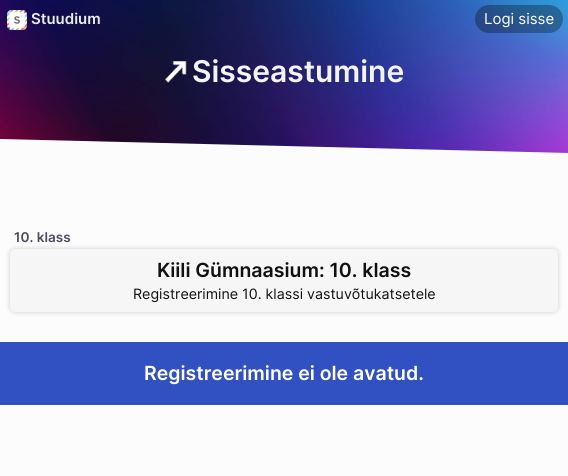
#include <cairo/cairo.h>
#include <math.h>
#include <stddef.h>

static cairo_t *cr;

static void use_color(int r, int g, int b) {
  cairo_set_source_rgb(cr, r / 255.0, g / 255.0, b / 255.0);
}

static void text(double x, double y, const char *s, const char *family, double size, int italic, int bold, int r, int g, int b) {
  cairo_select_font_face(cr, family, italic ? CAIRO_FONT_SLANT_ITALIC : CAIRO_FONT_SLANT_NORMAL,
    bold ? CAIRO_FONT_WEIGHT_BOLD : CAIRO_FONT_WEIGHT_NORMAL);
  cairo_set_font_size(cr, size);
  use_color(r, g, b);
  cairo_move_to(cr, x, y);
  cairo_show_text(cr, s);
}

static void box(double x, double y, double w, double h, int r, int g, int b) {
  use_color(r, g, b);
  cairo_rectangle(cr, x, y, w, h);
  cairo_fill(cr);
}

static void round_rect(double x, double y, double w, double h, double r) {
  cairo_new_sub_path(cr);
  cairo_arc(cr, x + w - r, y + h - r, r, 0, M_PI / 2);
  cairo_arc(cr, x + r, y + h - r, r, M_PI / 2, M_PI);
  cairo_arc(cr, x + r, y + r, r, M_PI, 1.5 * M_PI);
  cairo_arc(cr, x + w - r, y + r, r, 1.5 * M_PI, 2 * M_PI);
  cairo_close_path(cr);
}

static void shadow(double x, double y, double w, double h, double r, double blur, double alpha) {
  cairo_push_group_with_content(cr, CAIRO_CONTENT_ALPHA);
  cairo_set_operator(cr, CAIRO_OPERATOR_SOURCE);
  for (int i = 15; i >= -15 && fmin(w, h) + blur * i / 3 > 0; i -= 2) {
    double e = blur * i / 6;
    cairo_set_source_rgba(cr, 0, 0, 0, alpha * erfc((i - 1) / 8.5) / 2);
    round_rect(x - e, y - e, w + 2 * e, h + 2 * e, fmax(0, fmin(r + e + blur * .6, fmin(w, h) / 2 + e)));
    cairo_fill(cr);
  }
  cairo_pattern_t *soft = cairo_pop_group(cr);
  cairo_mask(cr, soft);
  cairo_pattern_destroy(soft);
}

static void picture(const char *path, double x, double y, double w, double h) {
  cairo_surface_t *image = cairo_image_surface_create_from_png(path);
  cairo_save(cr);
  cairo_set_source_surface(cr, image, x, y);
  cairo_rectangle(cr, x, y, w, h);
  cairo_fill(cr);
  cairo_restore(cr);
  cairo_surface_destroy(image);
}

static void draw(void) {
  use_color(255, 255, 255);
  cairo_paint(cr);
  picture("img_01.png", 0, 0, 568, 153);
  picture("img_02.png", 7, 10, 20, 20);
  cairo_set_source_rgba(cr, 0, 0, 0, 0.3);
  round_rect(475, 5, 88, 28, 14);
  cairo_fill(cr);
  picture("img_03.png", 165, 61, 22, 22);
  box(0, 229, 568, 247, 252, 252, 252);
  cairo_new_path(cr);
  cairo_move_to(cr, 0, 139);
  cairo_line_to(cr, 568, 153);
  cairo_line_to(cr, 568, 243);
  cairo_line_to(cr, 0, 229);
  cairo_close_path(cr);
  cairo_fill(cr);
  use_color(4, 4, 39);
  shadow(10, 249, 548, 63, 5, 2.5, 0.2);
  use_color(246, 246, 246);
  round_rect(10, 249, 548, 63, 5);
  cairo_fill(cr);
  box(0, 342, 568, 63, 49, 80, 193);
  text(31, 24, "Stuudium", "Inter SemiBold", 15, 0, 0, 236, 236, 240);
  text(484, 24, "Logi sisse", "Inter", 15, 0, 0, 255, 255, 255);
  text(192, 82, "Sisseastumine", "Inter SemiBold", 30, 0, 0, 244, 244, 248);
  text(14, 242, "10. klass", "Inter SemiBold", 13.5, 0, 0, 76, 76, 97);
  text(157, 277, "Kiili Gümnaasium: 10. klass", "Inter SemiBold", 19.5, 0, 0, 17, 17, 17);
  text(133, 299, "Registreerimine 10. klassi vastuvõtukatsetele", "Inter", 14.25, 0, 0, 17, 17, 17);
  text(144, 380, "Registreerimine ei ole avatud.", "Inter SemiBold", 19.5, 0, 0, 255, 255, 255);
}

int main(void) {
  cairo_surface_t *surface = cairo_image_surface_create(CAIRO_FORMAT_RGB24, 568, 476);
  cr = cairo_create(surface);
  cairo_font_options_t *options = cairo_font_options_create();
  cairo_font_options_set_hint_metrics(options, CAIRO_HINT_METRICS_OFF);
  cairo_font_options_set_hint_style(options, CAIRO_HINT_STYLE_NONE);
  cairo_set_font_options(cr, options);
  cairo_set_miter_limit(cr, 4);
  draw();
  cairo_surface_write_to_png(surface, "out.png");
  cairo_font_options_destroy(options);
  cairo_destroy(cr);
  cairo_surface_destroy(surface);
  return 0;
}
